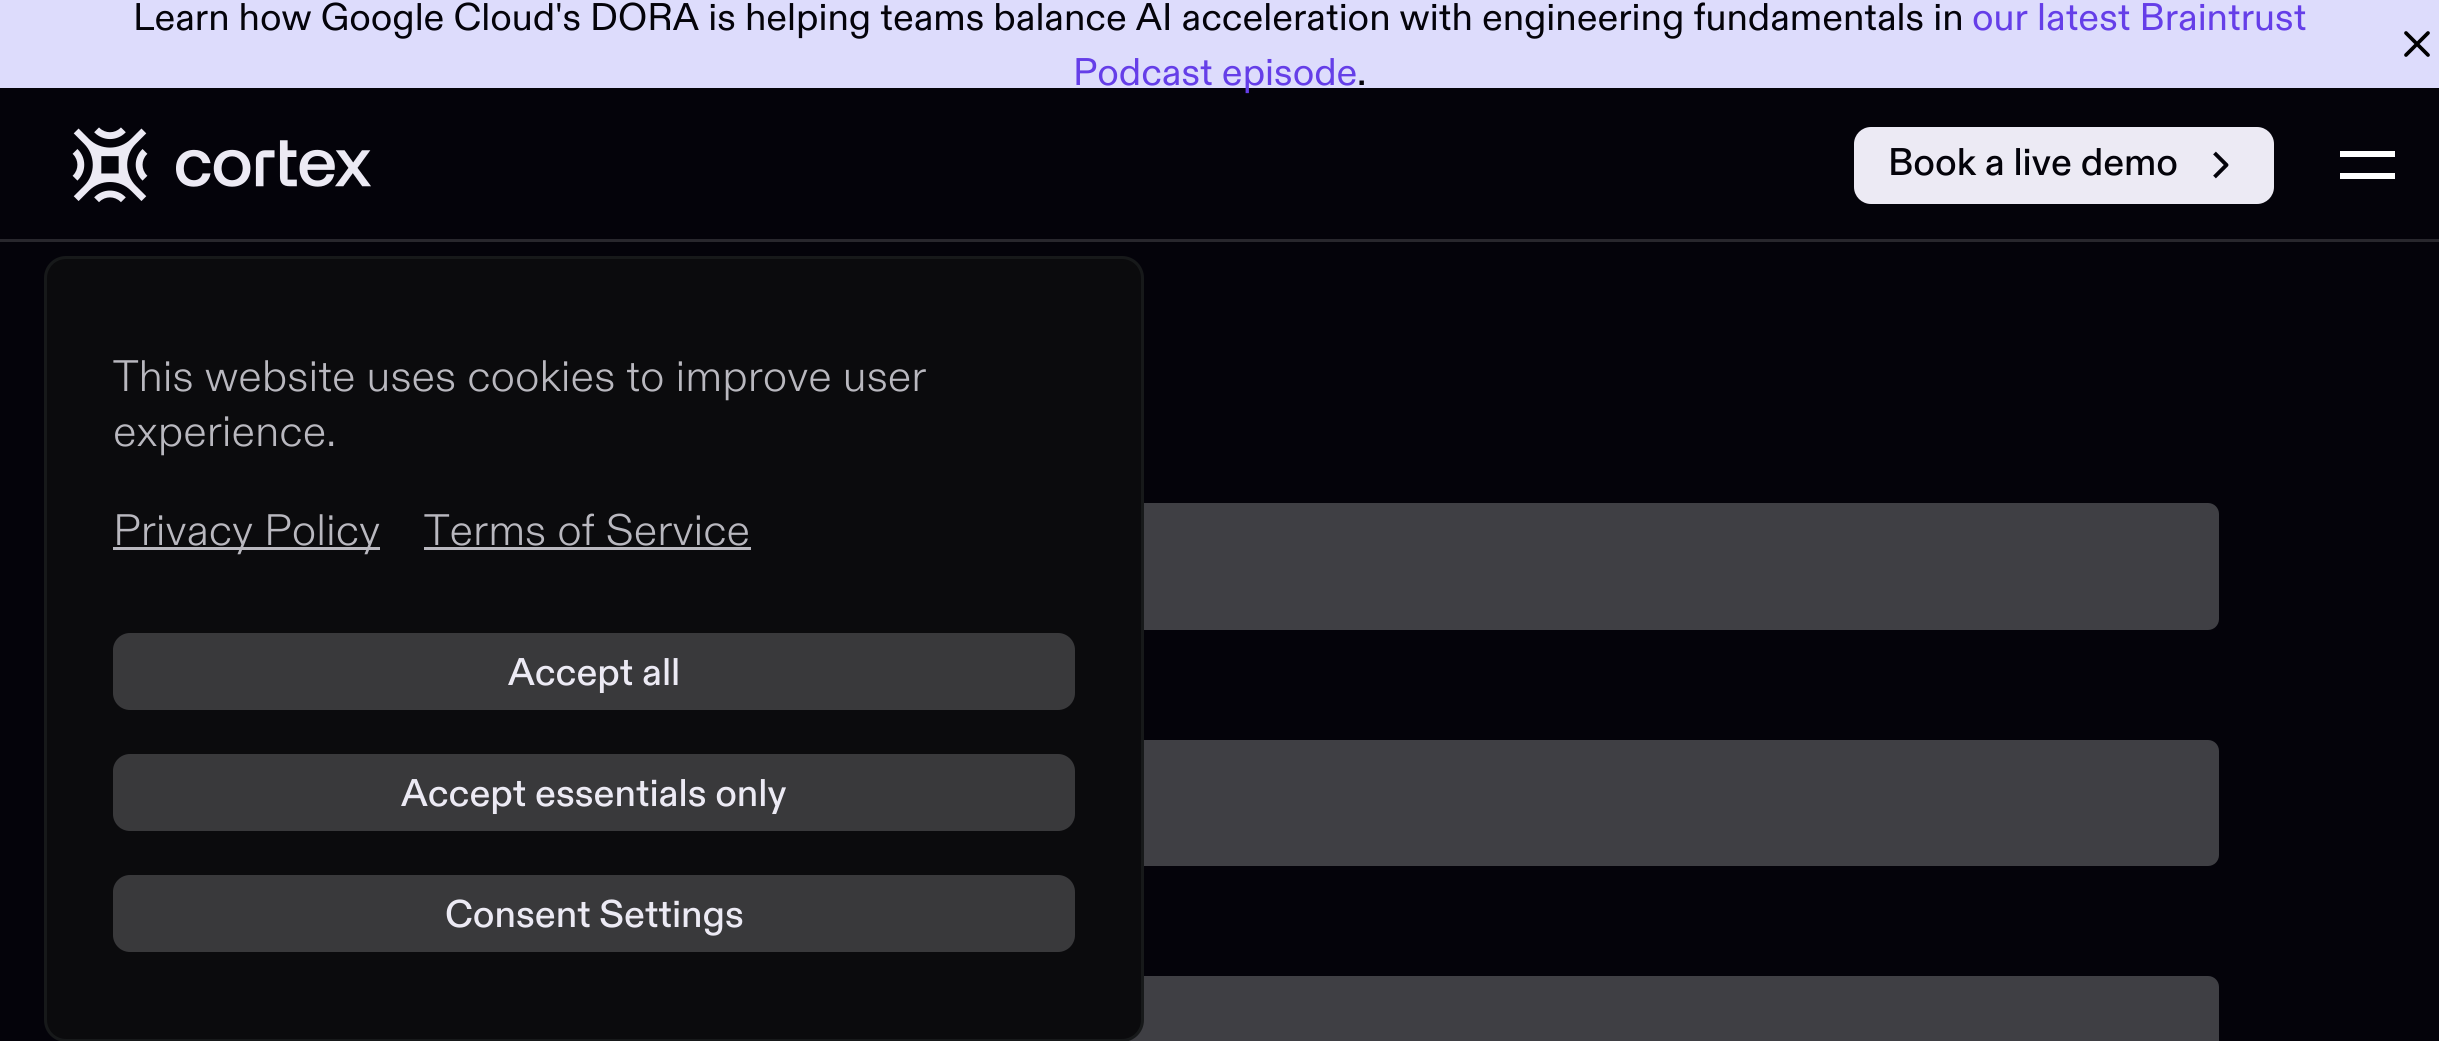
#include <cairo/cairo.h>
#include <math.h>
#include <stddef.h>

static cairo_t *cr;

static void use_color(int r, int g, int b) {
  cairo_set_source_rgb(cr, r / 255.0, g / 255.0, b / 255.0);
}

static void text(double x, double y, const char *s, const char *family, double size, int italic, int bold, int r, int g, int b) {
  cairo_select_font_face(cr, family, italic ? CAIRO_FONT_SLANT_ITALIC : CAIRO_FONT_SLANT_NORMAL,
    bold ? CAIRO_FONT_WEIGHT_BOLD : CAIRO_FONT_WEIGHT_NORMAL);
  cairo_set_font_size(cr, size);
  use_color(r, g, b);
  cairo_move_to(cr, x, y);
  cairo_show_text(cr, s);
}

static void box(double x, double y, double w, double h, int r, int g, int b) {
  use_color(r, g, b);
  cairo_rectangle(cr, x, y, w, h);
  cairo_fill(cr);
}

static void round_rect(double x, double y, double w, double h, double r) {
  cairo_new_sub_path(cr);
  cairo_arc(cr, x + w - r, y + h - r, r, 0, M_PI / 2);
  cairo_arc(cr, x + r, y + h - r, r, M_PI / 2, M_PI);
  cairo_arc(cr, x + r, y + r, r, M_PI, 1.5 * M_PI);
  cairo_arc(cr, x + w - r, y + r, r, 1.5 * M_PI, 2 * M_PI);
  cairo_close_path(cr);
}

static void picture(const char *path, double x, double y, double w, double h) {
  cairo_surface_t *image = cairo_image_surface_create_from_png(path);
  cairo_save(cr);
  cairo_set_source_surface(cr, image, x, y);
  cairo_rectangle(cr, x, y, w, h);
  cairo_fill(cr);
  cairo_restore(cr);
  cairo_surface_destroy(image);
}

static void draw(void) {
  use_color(4, 3, 10);
  cairo_paint(cr);
  box(0, 0, 2439, 88, 221, 220, 252);
  cairo_new_path(cr);
  cairo_move_to(cr, 2428, 33);
  cairo_line_to(cr, 2406, 55);
  cairo_move_to(cr, 2406, 33);
  cairo_line_to(cr, 2428, 55);
  use_color(0, 0, 0);
  cairo_set_line_width(cr, 3.7);
  cairo_set_line_cap(cr, CAIRO_LINE_CAP_ROUND);
  cairo_set_line_join(cr, CAIRO_LINE_JOIN_ROUND);
  cairo_stroke(cr);
  box(0, 239, 2439, 3, 40, 39, 45);
  picture("img_01.png", 72, 127, 76, 76);
  picture("img_02.png", 176, 140, 195, 47);
  use_color(236, 234, 244);
  round_rect(1855.5, 128.5, 417, 74, 15.5);
  cairo_fill_preserve(cr);
  cairo_set_line_width(cr, 3);
  cairo_set_line_cap(cr, CAIRO_LINE_CAP_BUTT);
  cairo_set_line_join(cr, CAIRO_LINE_JOIN_MITER);
  cairo_stroke(cr);
  cairo_new_path(cr);
  cairo_move_to(cr, 2214.5, 153);
  cairo_line_to(cr, 2226.5, 165);
  cairo_line_to(cr, 2214.5, 177);
  use_color(4, 3, 10);
  cairo_set_line_width(cr, 3.9);
  cairo_set_line_join(cr, CAIRO_LINE_JOIN_ROUND);
  cairo_stroke(cr);
  box(2340, 151, 55, 6, 255, 255, 255);
  box(2340, 173, 55, 6, 255, 255, 255);
  use_color(63, 63, 68);
  round_rect(220, 503, 1999, 127, 11);
  cairo_fill(cr);
  round_rect(220, 740, 1999, 126, 11);
  cairo_fill(cr);
  round_rect(220, 976, 1999, 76, 11);
  cairo_fill(cr);
  use_color(11, 11, 13);
  round_rect(45.5, 257.5, 1097, 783, 20.5);
  cairo_fill_preserve(cr);
  use_color(23, 25, 26);
  cairo_set_line_width(cr, 3);
  cairo_set_line_join(cr, CAIRO_LINE_JOIN_MITER);
  cairo_stroke(cr);
  box(113, 547, 267, 3, 185, 184, 191);
  box(424, 547, 327, 3, 185, 184, 191);
  use_color(57, 57, 59);
  round_rect(113, 633, 962, 77, 17);
  cairo_fill(cr);
  round_rect(113, 754, 962, 77, 17);
  cairo_fill(cr);
  round_rect(113, 875, 962, 77, 17);
  cairo_fill(cr);
  text(133, 30, "Learn how Google Cloud's DORA is helping teams balance AI acceleration with engineering fundamentals in", "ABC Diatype", 38.5, 0, 0, 4, 3, 10);
  text(1972, 30, "our latest Braintrust", "ABC Diatype", 38.5, 0, 0, 101, 62, 232);
  text(1073, 85, "Podcast episode", "ABC Diatype", 38.5, 0, 0, 101, 62, 232);
  text(1357, 85, ".", "ABC Diatype", 38.5, 0, 0, 4, 3, 10);
  text(1888, 175, "Book a live demo", "ABC Diatype Medium", 38.5, 0, 0, 4, 3, 10);
  text(113, 391, "This website uses cookies to improve user", "ABC Diatype Light", 44, 0, 0, 185, 184, 191);
  text(113, 446, "experience.", "ABC Diatype Light", 44, 0, 0, 185, 184, 191);
  text(113, 545, "Privacy Policy", "ABC Diatype Light", 44, 0, 0, 185, 184, 191);
  text(424, 545, "Terms of Service", "ABC Diatype Light", 44, 0, 0, 185, 184, 191);
  text(508, 685, "Accept all", "ABC Diatype Medium", 38.5, 0, 0, 236, 234, 244);
  text(401, 806, "Accept essentials only", "ABC Diatype Medium", 38.5, 0, 0, 236, 234, 244);
  text(445, 927, "Consent Settings", "ABC Diatype Medium", 38.5, 0, 0, 236, 234, 244);
}

int main(void) {
  cairo_surface_t *surface = cairo_image_surface_create(CAIRO_FORMAT_RGB24, 2439, 1041);
  cr = cairo_create(surface);
  cairo_font_options_t *options = cairo_font_options_create();
  cairo_font_options_set_hint_metrics(options, CAIRO_HINT_METRICS_OFF);
  cairo_font_options_set_hint_style(options, CAIRO_HINT_STYLE_NONE);
  cairo_set_font_options(cr, options);
  cairo_set_miter_limit(cr, 4);
  draw();
  cairo_surface_write_to_png(surface, "out.png");
  cairo_font_options_destroy(options);
  cairo_destroy(cr);
  cairo_surface_destroy(surface);
  return 0;
}
